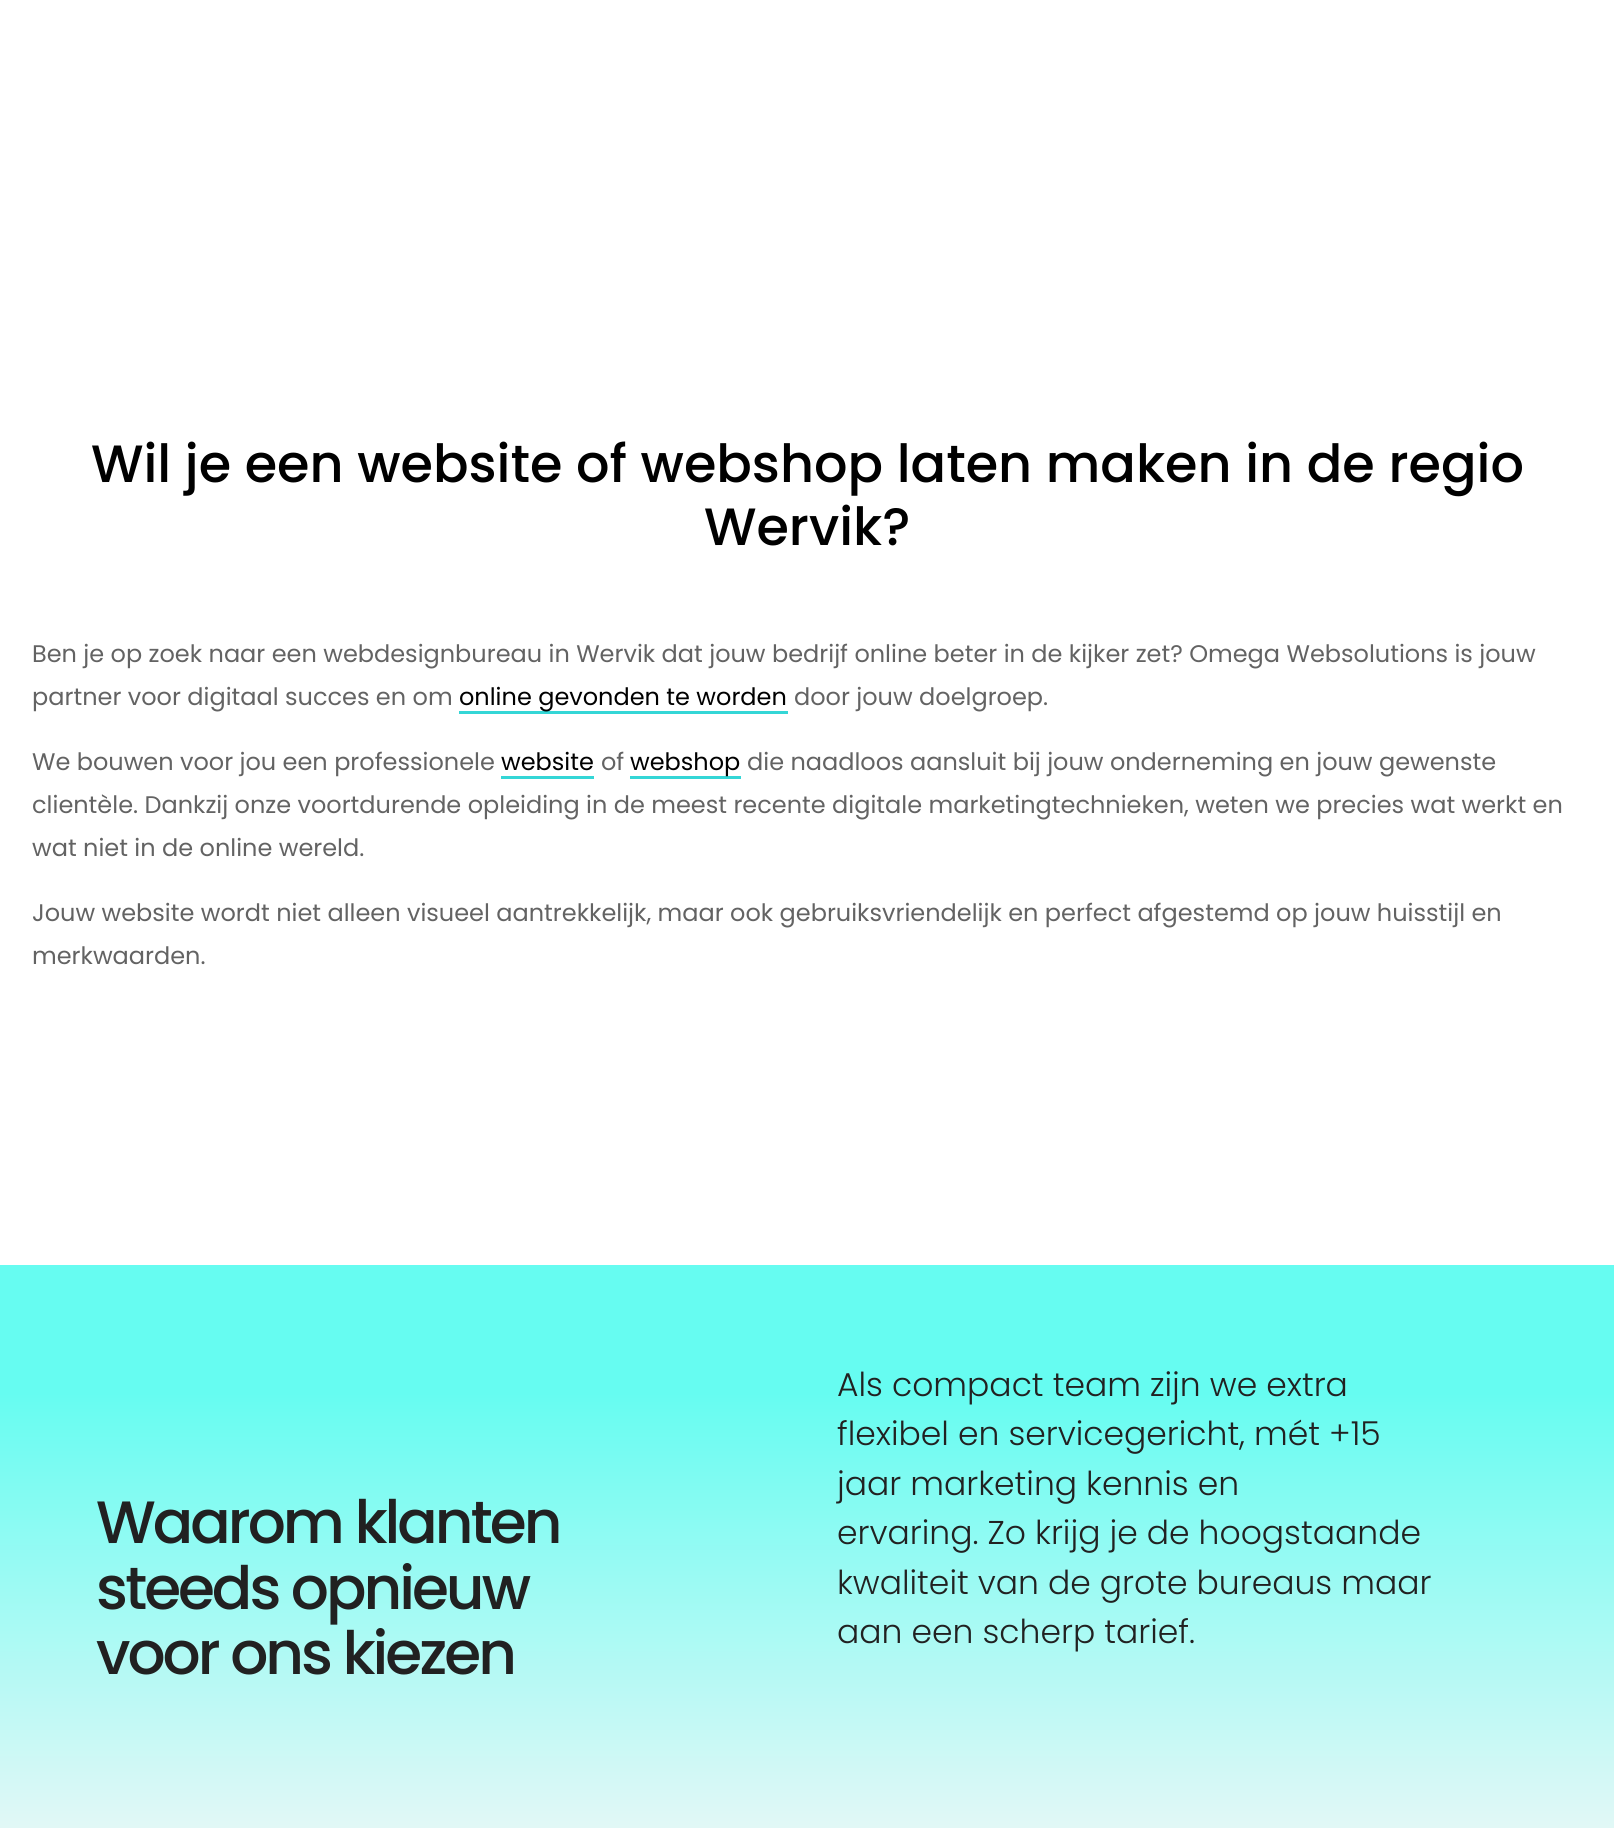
#include <cairo/cairo.h>
#include <math.h>
#include <stddef.h>

static cairo_t *cr;

static void use_color(int r, int g, int b) {
  cairo_set_source_rgb(cr, r / 255.0, g / 255.0, b / 255.0);
}

static void text(double x, double y, const char *s, const char *family, double size, int italic, int bold, int r, int g, int b) {
  cairo_select_font_face(cr, family, italic ? CAIRO_FONT_SLANT_ITALIC : CAIRO_FONT_SLANT_NORMAL,
    bold ? CAIRO_FONT_WEIGHT_BOLD : CAIRO_FONT_WEIGHT_NORMAL);
  cairo_set_font_size(cr, size);
  use_color(r, g, b);
  cairo_move_to(cr, x, y);
  cairo_show_text(cr, s);
}

static void spaced_text(double x, double y, const char *s, double letter, double word) {
  cairo_move_to(cr, x, y);
  while (*s) {
    char ch[5] = {0};
    int n = 0;
    do ch[n++] = *s++; while ((*s & 0xC0) == 0x80);
    cairo_show_text(cr, ch);
    cairo_rel_move_to(cr, letter + word * (*ch == ' '), 0);
  }
}

static void box(double x, double y, double w, double h, int r, int g, int b) {
  use_color(r, g, b);
  cairo_rectangle(cr, x, y, w, h);
  cairo_fill(cr);
}

static void draw(void) {
  cairo_pattern_t *gradient;
  use_color(255, 255, 255);
  cairo_paint(cr);
  box(459, 711, 329, 3, 52, 214, 214);
  box(501, 776, 93, 3, 52, 214, 214);
  box(630, 776, 111, 3, 52, 214, 214);
  gradient = cairo_pattern_create_linear(807, 1265, 807, 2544);
  cairo_pattern_add_color_stop_rgba(gradient, 0.1, 0.4, 0.988, 0.945, 1);
  cairo_pattern_add_color_stop_rgba(gradient, 0.5, 0.969, 0.969, 0.969, 1);
  cairo_set_source(cr, gradient);
  cairo_pattern_destroy(gradient);
  cairo_rectangle(cr, 0, 1265, 1614, 563);
  cairo_fill(cr);
  text(91, 482, "Wil je een website of webshop laten maken in de regio", "Poppins Medium", 52.5, 0, 0, 0, 0, 0);
  text(704, 545, "Wervik?", "Poppins Medium", 52.5, 0, 0, 0, 0, 0);
  text(32, 662, "Ben je op zoek naar een webdesignbureau in Wervik dat jouw bedrijf online beter in de kijker zet? Omega Websolutions is jouw", "Poppins", 24, 0, 0, 99, 99, 99);
  text(32, 705, "partner voor digitaal succes en om", "Poppins", 24, 0, 0, 99, 99, 99);
  text(459, 705, "online gevonden te worden", "Poppins", 24, 0, 0, 0, 0, 0);
  text(794, 705, "door jouw doelgroep.", "Poppins", 24, 0, 0, 99, 99, 99);
  text(32, 770, "We bouwen voor jou een professionele", "Poppins", 24, 0, 0, 99, 99, 99);
  text(501, 770, "website", "Poppins", 24, 0, 0, 0, 0, 0);
  text(601, 770, "of", "Poppins", 24, 0, 0, 99, 99, 99);
  text(630, 770, "webshop", "Poppins", 24, 0, 0, 0, 0, 0);
  text(747, 770, "die naadloos aansluit bij jouw onderneming en jouw gewenste", "Poppins", 24, 0, 0, 99, 99, 99);
  text(32, 813, "clientèle. Dankzij onze voortdurende opleiding in de meest recente digitale marketingtechnieken, weten we precies wat werkt en", "Poppins", 24, 0, 0, 99, 99, 99);
  text(32, 856, "wat niet in de online wereld.", "Poppins", 24, 0, 0, 99, 99, 99);
  text(32, 921, "Jouw website wordt niet alleen visueel aantrekkelijk, maar ook gebruiksvriendelijk en perfect afgestemd op jouw huisstijl en", "Poppins", 24, 0, 0, 99, 99, 99);
  text(32, 964, "merkwaarden.", "Poppins", 24, 0, 0, 99, 99, 99);
  cairo_select_font_face(cr, "Poppins Medium", CAIRO_FONT_SLANT_NORMAL, CAIRO_FONT_WEIGHT_NORMAL);
  cairo_set_font_size(cr, 59.75);
  use_color(33, 33, 33);
  spaced_text(96, 1543, "Waarom klanten", -3, 0);
  spaced_text(96, 1609, "steeds opnieuw", -3, 0);
  spaced_text(96, 1674, "voor ons kiezen", -3, 0);
  text(837, 1396, "Als compact team zijn we extra", "Poppins Light", 33, 0, 0, 33, 33, 33);
  text(837, 1445, "flexibel en servicegericht, mét +15", "Poppins Light", 33, 0, 0, 33, 33, 33);
  text(837, 1495, "jaar marketing kennis en", "Poppins Light", 33, 0, 0, 33, 33, 33);
  text(837, 1544, "ervaring. Zo krijg je de hoogstaande", "Poppins Light", 33, 0, 0, 33, 33, 33);
  text(837, 1594, "kwaliteit van de grote bureaus maar", "Poppins Light", 33, 0, 0, 33, 33, 33);
  text(837, 1643, "aan een scherp tarief.", "Poppins Light", 33, 0, 0, 33, 33, 33);
}

int main(void) {
  cairo_surface_t *surface = cairo_image_surface_create(CAIRO_FORMAT_RGB24, 1614, 1828);
  cr = cairo_create(surface);
  cairo_font_options_t *options = cairo_font_options_create();
  cairo_font_options_set_hint_metrics(options, CAIRO_HINT_METRICS_OFF);
  cairo_font_options_set_hint_style(options, CAIRO_HINT_STYLE_NONE);
  cairo_set_font_options(cr, options);
  cairo_set_miter_limit(cr, 4);
  draw();
  cairo_surface_write_to_png(surface, "out.png");
  cairo_font_options_destroy(options);
  cairo_destroy(cr);
  cairo_surface_destroy(surface);
  return 0;
}
